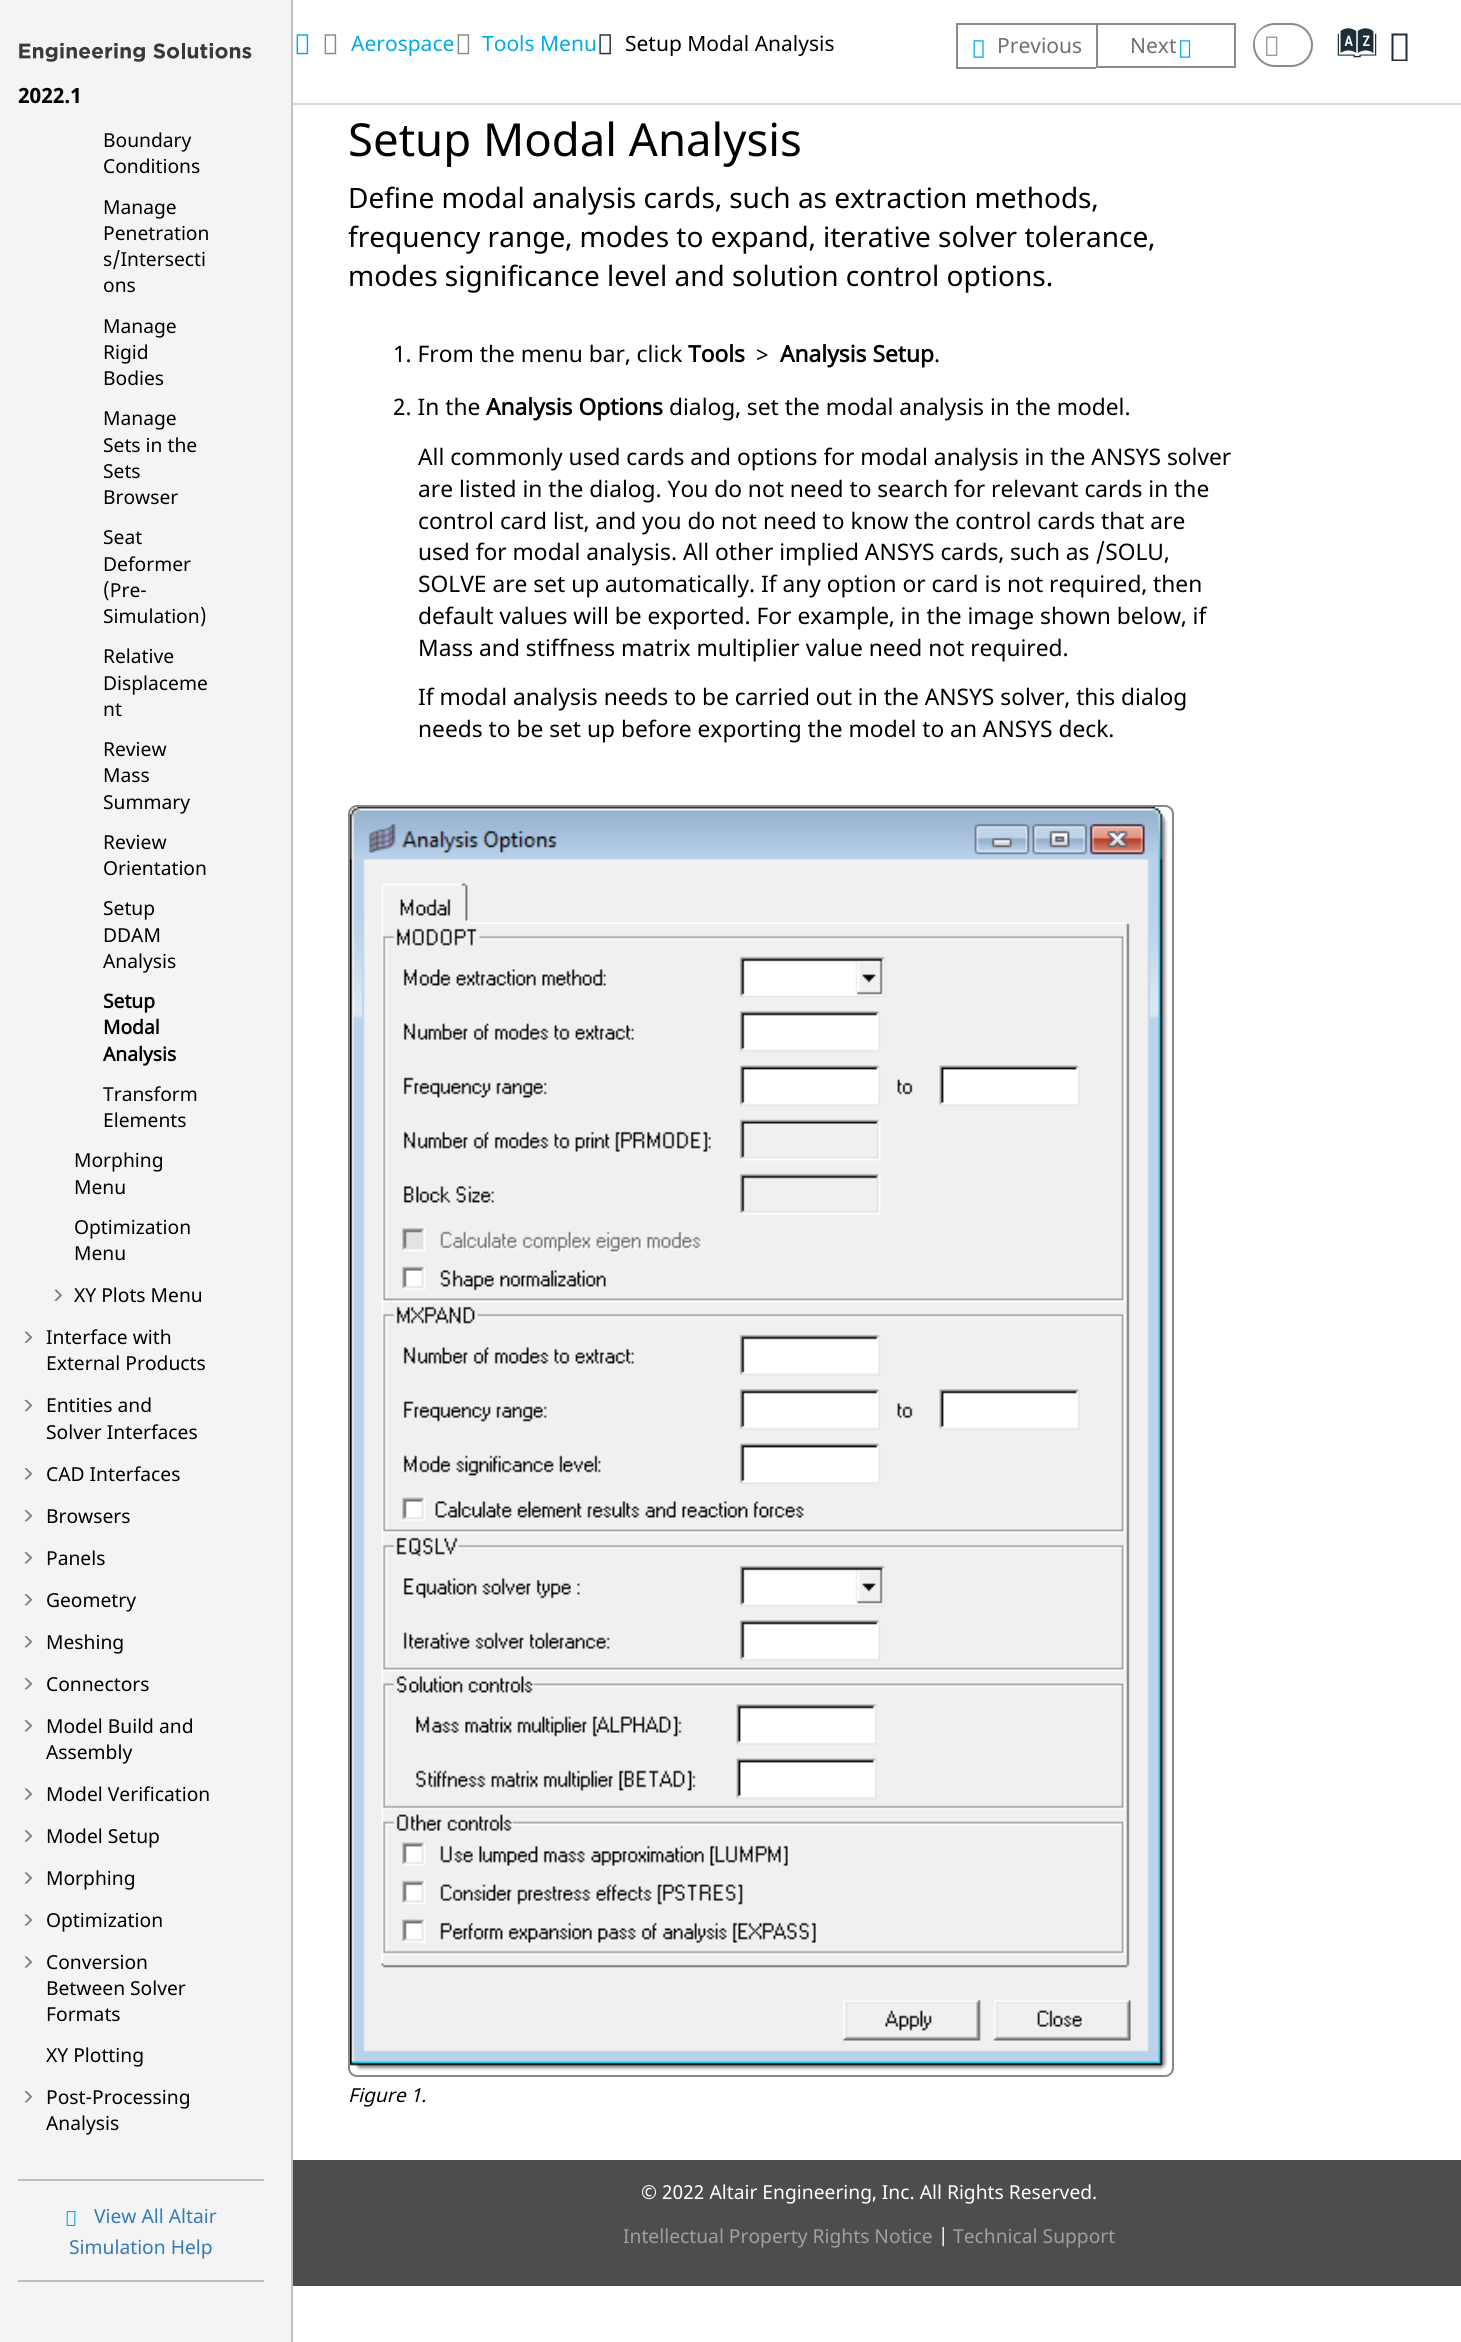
#include <cairo/cairo.h>
#include <math.h>
#include <stddef.h>

static cairo_t *cr;

static void use_color(int r, int g, int b) {
  cairo_set_source_rgb(cr, r / 255.0, g / 255.0, b / 255.0);
}

static void text(double x, double y, const char *s, const char *family, double size, int italic, int bold, int r, int g, int b) {
  cairo_select_font_face(cr, family, italic ? CAIRO_FONT_SLANT_ITALIC : CAIRO_FONT_SLANT_NORMAL,
    bold ? CAIRO_FONT_WEIGHT_BOLD : CAIRO_FONT_WEIGHT_NORMAL);
  cairo_set_font_size(cr, size);
  use_color(r, g, b);
  cairo_move_to(cr, x, y);
  cairo_show_text(cr, s);
}

static void box(double x, double y, double w, double h, int r, int g, int b) {
  use_color(r, g, b);
  cairo_rectangle(cr, x, y, w, h);
  cairo_fill(cr);
}

static void round_rect(double x, double y, double w, double h, double r) {
  cairo_new_sub_path(cr);
  cairo_arc(cr, x + w - r, y + h - r, r, 0, M_PI / 2);
  cairo_arc(cr, x + r, y + h - r, r, M_PI / 2, M_PI);
  cairo_arc(cr, x + r, y + r, r, M_PI, 1.5 * M_PI);
  cairo_arc(cr, x + w - r, y + r, r, 1.5 * M_PI, 2 * M_PI);
  cairo_close_path(cr);
}

static void picture(const char *path, double x, double y, double w, double h) {
  cairo_surface_t *image = cairo_image_surface_create_from_png(path);
  cairo_save(cr);
  cairo_set_source_surface(cr, image, x, y);
  cairo_rectangle(cr, x, y, w, h);
  cairo_fill(cr);
  cairo_restore(cr);
  cairo_surface_destroy(image);
}

static void draw(void) {
  use_color(255, 255, 255);
  cairo_paint(cr);
  box(0, 0, 291, 2342, 244, 244, 244);
  box(291, 0, 2, 2342, 192, 192, 192);
  picture("img_01.png", 19, 43, 233, 19);
  picture("img_02.png", 54, 1289, 8, 12);
  picture("img_03.png", 24, 1331, 9, 12);
  picture("img_04.png", 24, 1399, 9, 13);
  picture("img_05.png", 24, 1468, 9, 12);
  picture("img_05.png", 24, 1510, 9, 12);
  picture("img_05.png", 24, 1552, 9, 12);
  picture("img_05.png", 24, 1594, 9, 12);
  picture("img_05.png", 24, 1636, 9, 12);
  picture("img_05.png", 24, 1678, 9, 12);
  picture("img_05.png", 24, 1720, 9, 12);
  picture("img_06.png", 24, 1788, 9, 12);
  picture("img_06.png", 24, 1830, 9, 12);
  picture("img_06.png", 24, 1872, 9, 12);
  picture("img_06.png", 24, 1914, 9, 12);
  picture("img_06.png", 24, 1956, 9, 12);
  picture("img_05.png", 24, 2091, 9, 12);
  box(18, 2179, 246, 2, 190, 190, 190);
  box(18, 2280, 246, 2, 190, 190, 190);
  picture("img_07.png", 66, 2211, 10, 15);
  box(293, 103, 1168, 2, 216, 216, 216);
  picture("img_08.png", 296, 34, 13, 21);
  picture("img_09.png", 324, 34, 13, 21);
  picture("img_09.png", 457, 34, 13, 21);
  picture("img_10.png", 599, 34, 12, 21);
  box(956, 23, 140, 2, 139, 139, 139);
  box(956, 67, 140, 2, 139, 139, 139);
  box(956, 23, 2, 45, 139, 139, 139);
  picture("img_11.png", 973, 40, 11, 18);
  cairo_rectangle(cr, 1097, 24, 138, 43);
  cairo_stroke(cr);
  picture("img_12.png", 1180, 40, 11, 18);
  round_rect(1254, 24, 58, 42, 21);
  cairo_stroke(cr);
  use_color(255, 255, 255);
  round_rect(1255, 26, 35, 34, 17);
  cairo_fill(cr);
  picture("img_13.png", 1266, 36, 12, 20);
  use_color(29, 46, 56);
  cairo_new_path(cr);
  cairo_move_to(cr, 1391.5, 61);
  cairo_line_to(cr, 1391.5, 33.5);
  cairo_line_to(cr, 1407.5, 33.5);
  cairo_line_to(cr, 1407.5, 61);
  cairo_close_path(cr);
  cairo_move_to(cr, 1393.5, 59.5);
  cairo_line_to(cr, 1405.5, 59.5);
  cairo_line_to(cr, 1405.5, 35.5);
  cairo_line_to(cr, 1393.5, 35.5);
  cairo_close_path(cr);
  cairo_fill(cr);
  round_rect(349, 806, 824, 1270, 8);
  use_color(133, 137, 141);
  cairo_stroke(cr);
  picture("img_14.png", 350, 806, 818, 1265);
  box(293, 2160, 1168, 126, 77, 77, 77);
  text(18, 103, "2022.1", "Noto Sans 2", 21, 0, 1, 0, 0, 0);
  text(103, 147, "Boundary", "Noto Sans", 19.25, 0, 0, 0, 0, 0);
  text(103, 173, "Conditions", "Noto Sans", 19.25, 0, 0, 0, 0, 0);
  text(103, 214, "Manage", "Noto Sans", 19.25, 0, 0, 0, 0, 0);
  text(103, 240, "Penetration", "Noto Sans", 19.25, 0, 0, 0, 0, 0);
  text(103, 266, "s/Intersecti", "Noto Sans", 19.25, 0, 0, 0, 0, 0);
  text(103, 292, "ons", "Noto Sans", 19.25, 0, 0, 0, 0, 0);
  text(103, 333, "Manage", "Noto Sans", 19.25, 0, 0, 0, 0, 0);
  text(103, 359, "Rigid", "Noto Sans", 19.25, 0, 0, 0, 0, 0);
  text(103, 385, "Bodies", "Noto Sans", 19.25, 0, 0, 0, 0, 0);
  text(103, 425, "Manage", "Noto Sans", 19.25, 0, 0, 0, 0, 0);
  text(103, 452, "Sets in the", "Noto Sans", 19.25, 0, 0, 0, 0, 0);
  text(103, 478, "Sets", "Noto Sans", 19.25, 0, 0, 0, 0, 0);
  text(103, 504, "Browser", "Noto Sans", 19.25, 0, 0, 0, 0, 0);
  text(103, 544, "Seat", "Noto Sans", 19.25, 0, 0, 0, 0, 0);
  text(103, 571, "Deformer", "Noto Sans", 19.25, 0, 0, 0, 0, 0);
  text(103, 597, "(Pre-", "Noto Sans", 19.25, 0, 0, 0, 0, 0);
  text(103, 623, "Simulation)", "Noto Sans", 19.25, 0, 0, 0, 0, 0);
  text(103, 663, "Relative", "Noto Sans", 19.25, 0, 0, 0, 0, 0);
  text(103, 690, "Displaceme", "Noto Sans", 19.25, 0, 0, 0, 0, 0);
  text(103, 716, "nt", "Noto Sans", 19.25, 0, 0, 0, 0, 0);
  text(103, 756, "Review", "Noto Sans", 19.25, 0, 0, 0, 0, 0);
  text(103, 782, "Mass", "Noto Sans", 19.25, 0, 0, 0, 0, 0);
  text(103, 809, "Summary", "Noto Sans", 19.25, 0, 0, 0, 0, 0);
  text(103, 849, "Review", "Noto Sans", 19.25, 0, 0, 0, 0, 0);
  text(103, 875, "Orientation", "Noto Sans", 19.25, 0, 0, 0, 0, 0);
  text(103, 915, "Setup", "Noto Sans", 19.25, 0, 0, 0, 0, 0);
  text(103, 942, "DDAM", "Noto Sans", 19.25, 0, 0, 0, 0, 0);
  text(103, 968, "Analysis", "Noto Sans", 19.25, 0, 0, 0, 0, 0);
  text(103, 1008, "Setup", "Noto Sans", 19.25, 0, 1, 0, 0, 0);
  text(103, 1034, "Modal", "Noto Sans", 19.25, 0, 1, 0, 0, 0);
  text(103, 1061, "Analysis", "Noto Sans", 19.25, 0, 1, 0, 0, 0);
  text(103, 1101, "Transform", "Noto Sans", 19.25, 0, 0, 0, 0, 0);
  text(103, 1127, "Elements", "Noto Sans", 19.25, 0, 0, 0, 0, 0);
  text(74, 1167, "Morphing", "Noto Sans", 19.25, 0, 0, 0, 0, 0);
  text(74, 1194, "Menu", "Noto Sans", 19.25, 0, 0, 0, 0, 0);
  text(74, 1234, "Optimization", "Noto Sans", 19.25, 0, 0, 0, 0, 0);
  text(74, 1260, "Menu", "Noto Sans", 19.25, 0, 0, 0, 0, 0);
  text(74, 1302, "XY Plots Menu", "Noto Sans", 19.25, 0, 0, 0, 0, 0);
  text(46, 1344, "Interface with", "Noto Sans", 19.25, 0, 0, 0, 0, 0);
  text(46, 1370, "External Products", "Noto Sans", 19.25, 0, 0, 0, 0, 0);
  text(46, 1412, "Entities and", "Noto Sans", 19.25, 0, 0, 0, 0, 0);
  text(46, 1439, "Solver Interfaces", "Noto Sans", 19.25, 0, 0, 0, 0, 0);
  text(46, 1481, "CAD Interfaces", "Noto Sans", 19.25, 0, 0, 0, 0, 0);
  text(46, 1523, "Browsers", "Noto Sans", 19.25, 0, 0, 0, 0, 0);
  text(46, 1565, "Panels", "Noto Sans", 19.25, 0, 0, 0, 0, 0);
  text(46, 1607, "Geometry", "Noto Sans", 19.25, 0, 0, 0, 0, 0);
  text(46, 1649, "Meshing", "Noto Sans", 19.25, 0, 0, 0, 0, 0);
  text(46, 1691, "Connectors", "Noto Sans", 19.25, 0, 0, 0, 0, 0);
  text(46, 1733, "Model Build and", "Noto Sans", 19.25, 0, 0, 0, 0, 0);
  text(46, 1759, "Assembly", "Noto Sans", 19.25, 0, 0, 0, 0, 0);
  text(46, 1801, "Model Verification", "Noto Sans", 19.25, 0, 0, 0, 0, 0);
  text(46, 1843, "Model Setup", "Noto Sans", 19.25, 0, 0, 0, 0, 0);
  text(46, 1885, "Morphing", "Noto Sans", 19.25, 0, 0, 0, 0, 0);
  text(46, 1927, "Optimization", "Noto Sans", 19.25, 0, 0, 0, 0, 0);
  text(46, 1969, "Conversion", "Noto Sans", 19.25, 0, 0, 0, 0, 0);
  text(46, 1995, "Between Solver", "Noto Sans", 19.25, 0, 0, 0, 0, 0);
  text(46, 2021, "Formats", "Noto Sans", 19.25, 0, 0, 0, 0, 0);
  text(46, 2062, "XY Plotting", "Noto Sans", 19.25, 0, 0, 0, 0, 0);
  text(46, 2104, "Post-Processing", "Noto Sans", 19.25, 0, 0, 0, 0, 0);
  text(46, 2130, "Analysis", "Noto Sans", 19.25, 0, 0, 0, 0, 0);
  text(94, 2223, "View All Altair", "Noto Sans", 19.25, 0, 0, 51, 122, 183);
  text(69, 2254, "Simulation Help", "Noto Sans", 19.25, 0, 0, 51, 122, 183);
  text(351, 51, "Aerospace", "Noto Sans", 21, 0, 0, 0, 170, 230);
  text(482, 51, "Tools Menu", "Noto Sans", 21, 0, 0, 0, 170, 230);
  text(625, 51, "Setup Modal Analysis", "Noto Sans", 21, 0, 0, 0, 0, 0);
  text(997, 53, "Previous", "Noto Sans", 21, 0, 0, 112, 112, 112);
  text(1130, 53, "Next", "Noto Sans", 21, 0, 0, 112, 112, 112);
  text(1342, 62, "a", "Oxygen", 41, 0, 0, 29, 46, 56);
  text(348, 156, "Setup Modal Analysis", "Noto Sans", 45.5, 0, 0, 0, 0, 0);
  text(348, 208, "Define modal analysis cards, such as extraction methods,", "Noto Sans", 28, 0, 0, 0, 0, 0);
  text(348, 247, "frequency range, modes to expand, iterative solver tolerance,", "Noto Sans", 28, 0, 0, 0, 0, 0);
  text(348, 286, "modes significance level and solution control options.", "Noto Sans", 28, 0, 0, 0, 0, 0);
  text(393, 362, "1. From the menu bar, click", "Noto Sans", 22.75, 0, 0, 0, 0, 0);
  text(688, 362, "Tools", "Noto Sans", 22.75, 0, 1, 0, 0, 0);
  text(756, 362, ">", "Noto Sans", 22.75, 0, 0, 0, 0, 0);
  text(780, 362, "Analysis Setup", "Noto Sans", 22.75, 0, 1, 0, 0, 0);
  text(934, 362, ".", "Noto Sans", 22.75, 0, 0, 0, 0, 0);
  text(393, 415, "2. In the", "Noto Sans", 22.75, 0, 0, 0, 0, 0);
  text(486, 415, "Analysis Options", "Noto Sans", 22.75, 0, 1, 0, 0, 0);
  text(669, 415, "dialog, set the modal analysis in the model.", "Noto Sans", 22.75, 0, 0, 0, 0, 0);
  text(418, 465, "All commonly used cards and options for modal analysis in the ANSYS solver", "Noto Sans", 22.75, 0, 0, 0, 0, 0);
  text(418, 497, "are listed in the dialog. You do not need to search for relevant cards in the", "Noto Sans", 22.75, 0, 0, 0, 0, 0);
  text(418, 529, "control card list, and you do not need to know the control cards that are", "Noto Sans", 22.75, 0, 0, 0, 0, 0);
  text(418, 560, "used for modal analysis. All other implied ANSYS cards, such as /SOLU,", "Noto Sans", 22.75, 0, 0, 0, 0, 0);
  text(418, 592, "SOLVE are set up automatically. If any option or card is not required, then", "Noto Sans", 22.75, 0, 0, 0, 0, 0);
  text(418, 624, "default values will be exported. For example, in the image shown below, if", "Noto Sans", 22.75, 0, 0, 0, 0, 0);
  text(418, 656, "Mass and stiffness matrix multiplier value need not required.", "Noto Sans", 22.75, 0, 0, 0, 0, 0);
  text(418, 705, "If modal analysis needs to be carried out in the ANSYS solver, this dialog", "Noto Sans", 22.75, 0, 0, 0, 0, 0);
  text(418, 737, "needs to be set up before exporting the model to an ANSYS deck.", "Noto Sans", 22.75, 0, 0, 0, 0, 0);
  text(348, 2102, "Figure 1.", "Noto Sans", 19.25, 1, 0, 0, 0, 0);
  text(641, 2199, "© 2022 Altair Engineering, Inc. All Rights Reserved.", "Noto Sans", 19.25, 0, 0, 255, 255, 255);
  text(623, 2243, "Intellectual Property Rights Notice", "Noto Sans", 19.25, 0, 0, 159, 159, 159);
  text(938, 2243, "|", "Noto Sans", 19.25, 0, 0, 255, 255, 255);
  text(953, 2243, "Technical Support", "Noto Sans", 19.25, 0, 0, 159, 159, 159);
}

int main(void) {
  cairo_surface_t *surface = cairo_image_surface_create(CAIRO_FORMAT_RGB24, 1461, 2342);
  cr = cairo_create(surface);
  cairo_font_options_t *options = cairo_font_options_create();
  cairo_font_options_set_hint_metrics(options, CAIRO_HINT_METRICS_OFF);
  cairo_font_options_set_hint_style(options, CAIRO_HINT_STYLE_NONE);
  cairo_set_font_options(cr, options);
  cairo_set_miter_limit(cr, 4);
  draw();
  cairo_surface_write_to_png(surface, "out.png");
  cairo_font_options_destroy(options);
  cairo_destroy(cr);
  cairo_surface_destroy(surface);
  return 0;
}
